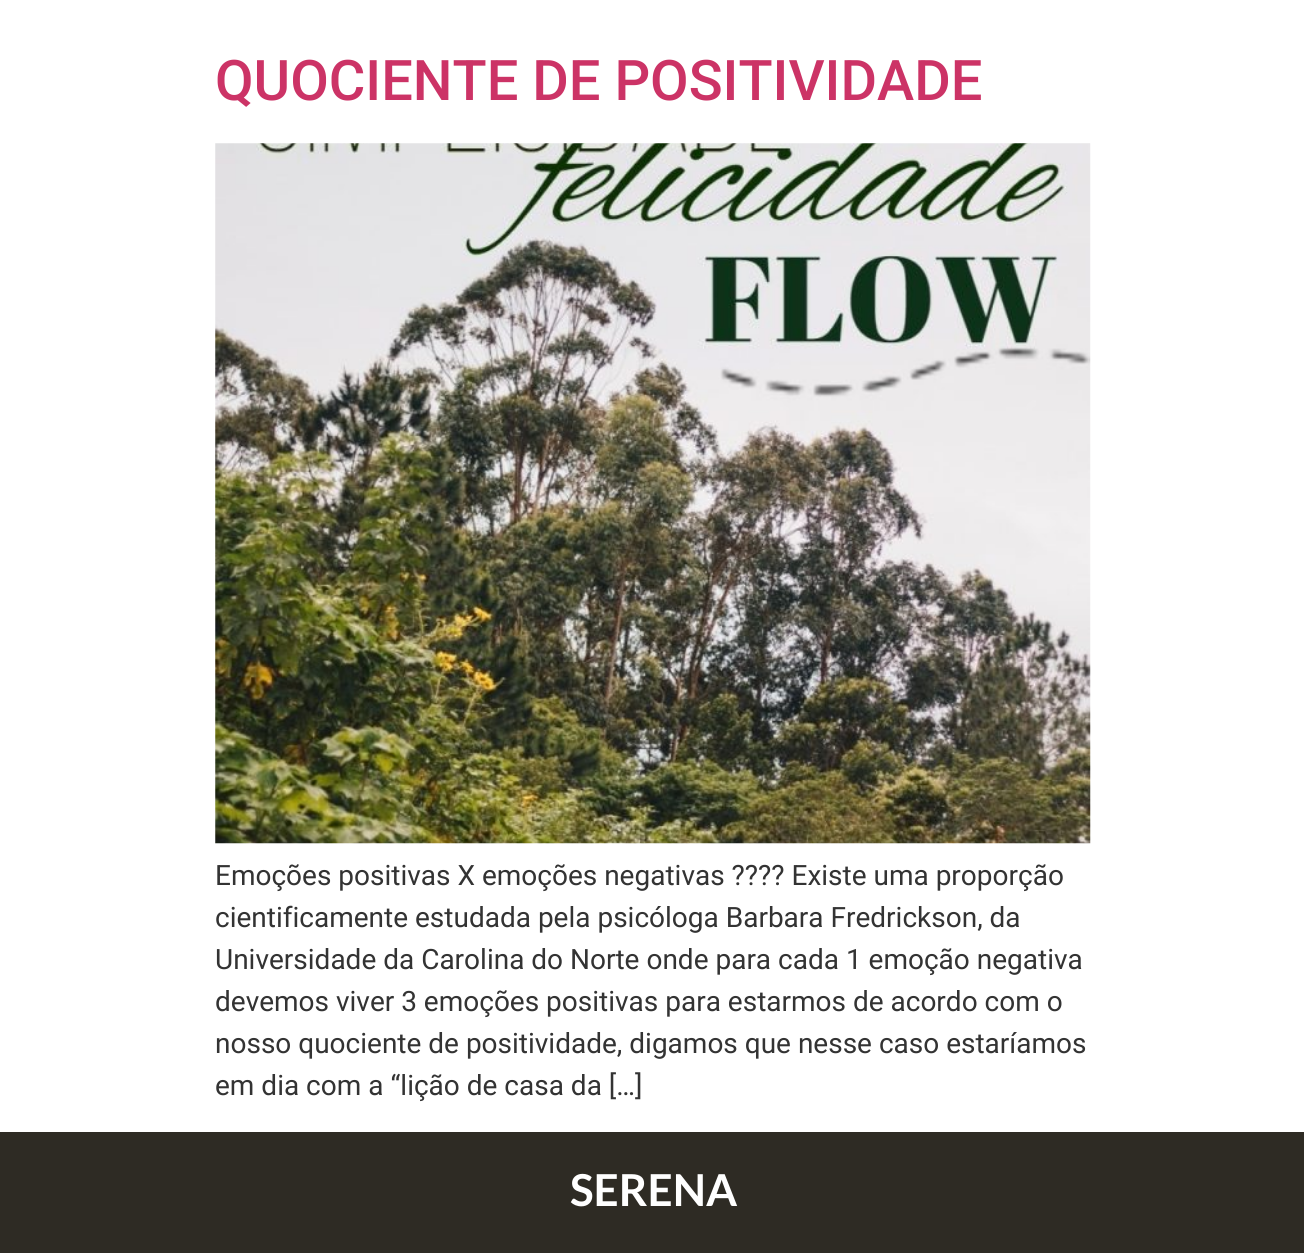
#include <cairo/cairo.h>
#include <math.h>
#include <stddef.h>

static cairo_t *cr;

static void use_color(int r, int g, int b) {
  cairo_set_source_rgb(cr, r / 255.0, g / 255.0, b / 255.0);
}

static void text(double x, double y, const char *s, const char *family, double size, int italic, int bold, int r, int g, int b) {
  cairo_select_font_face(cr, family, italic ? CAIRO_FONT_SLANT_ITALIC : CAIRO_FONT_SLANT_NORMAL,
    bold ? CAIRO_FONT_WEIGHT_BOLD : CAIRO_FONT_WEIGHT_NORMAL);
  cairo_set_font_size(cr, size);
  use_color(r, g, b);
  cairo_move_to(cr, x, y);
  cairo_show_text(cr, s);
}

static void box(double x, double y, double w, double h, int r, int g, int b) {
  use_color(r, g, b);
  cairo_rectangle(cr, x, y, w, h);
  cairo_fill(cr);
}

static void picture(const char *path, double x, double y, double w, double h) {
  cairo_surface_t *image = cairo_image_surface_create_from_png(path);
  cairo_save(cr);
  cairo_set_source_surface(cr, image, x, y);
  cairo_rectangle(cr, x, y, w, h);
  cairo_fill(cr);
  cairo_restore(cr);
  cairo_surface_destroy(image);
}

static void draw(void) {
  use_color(255, 255, 255);
  cairo_paint(cr);
  picture("img_01.png", 215, 143, 876, 701);
  box(0, 1132, 1304, 121, 46, 43, 36);
  text(215, 100, "QUOCIENTE DE POSITIVIDADE", "Roboto Medium", 56, 0, 0, 204, 51, 102);
  text(215, 885, "Emoções positivas X emoções negativas ?\077?\077 Existe uma proporção", "Roboto", 28, 0, 0, 51, 51, 51);
  text(215, 927, "cientificamente estudada pela psicóloga Barbara Fredrickson, da", "Roboto", 28, 0, 0, 51, 51, 51);
  text(215, 969, "Universidade da Carolina do Norte onde para cada 1 emoção negativa", "Roboto", 28, 0, 0, 51, 51, 51);
  text(215, 1011, "devemos viver 3 emoções positivas para estarmos de acordo com o", "Roboto", 28, 0, 0, 51, 51, 51);
  text(215, 1053, "nosso quociente de positividade, digamos que nesse caso estaríamos", "Roboto", 28, 0, 0, 51, 51, 51);
  text(215, 1095, "em dia com a “lição de casa da […]", "Roboto", 28, 0, 0, 51, 51, 51);
  text(570, 1206, "SERENA", "Lato", 44, 0, 1, 255, 255, 255);
}

int main(void) {
  cairo_surface_t *surface = cairo_image_surface_create(CAIRO_FORMAT_RGB24, 1304, 1253);
  cr = cairo_create(surface);
  cairo_font_options_t *options = cairo_font_options_create();
  cairo_font_options_set_hint_metrics(options, CAIRO_HINT_METRICS_OFF);
  cairo_font_options_set_hint_style(options, CAIRO_HINT_STYLE_NONE);
  cairo_set_font_options(cr, options);
  cairo_set_miter_limit(cr, 4);
  draw();
  cairo_surface_write_to_png(surface, "out.png");
  cairo_font_options_destroy(options);
  cairo_destroy(cr);
  cairo_surface_destroy(surface);
  return 0;
}
